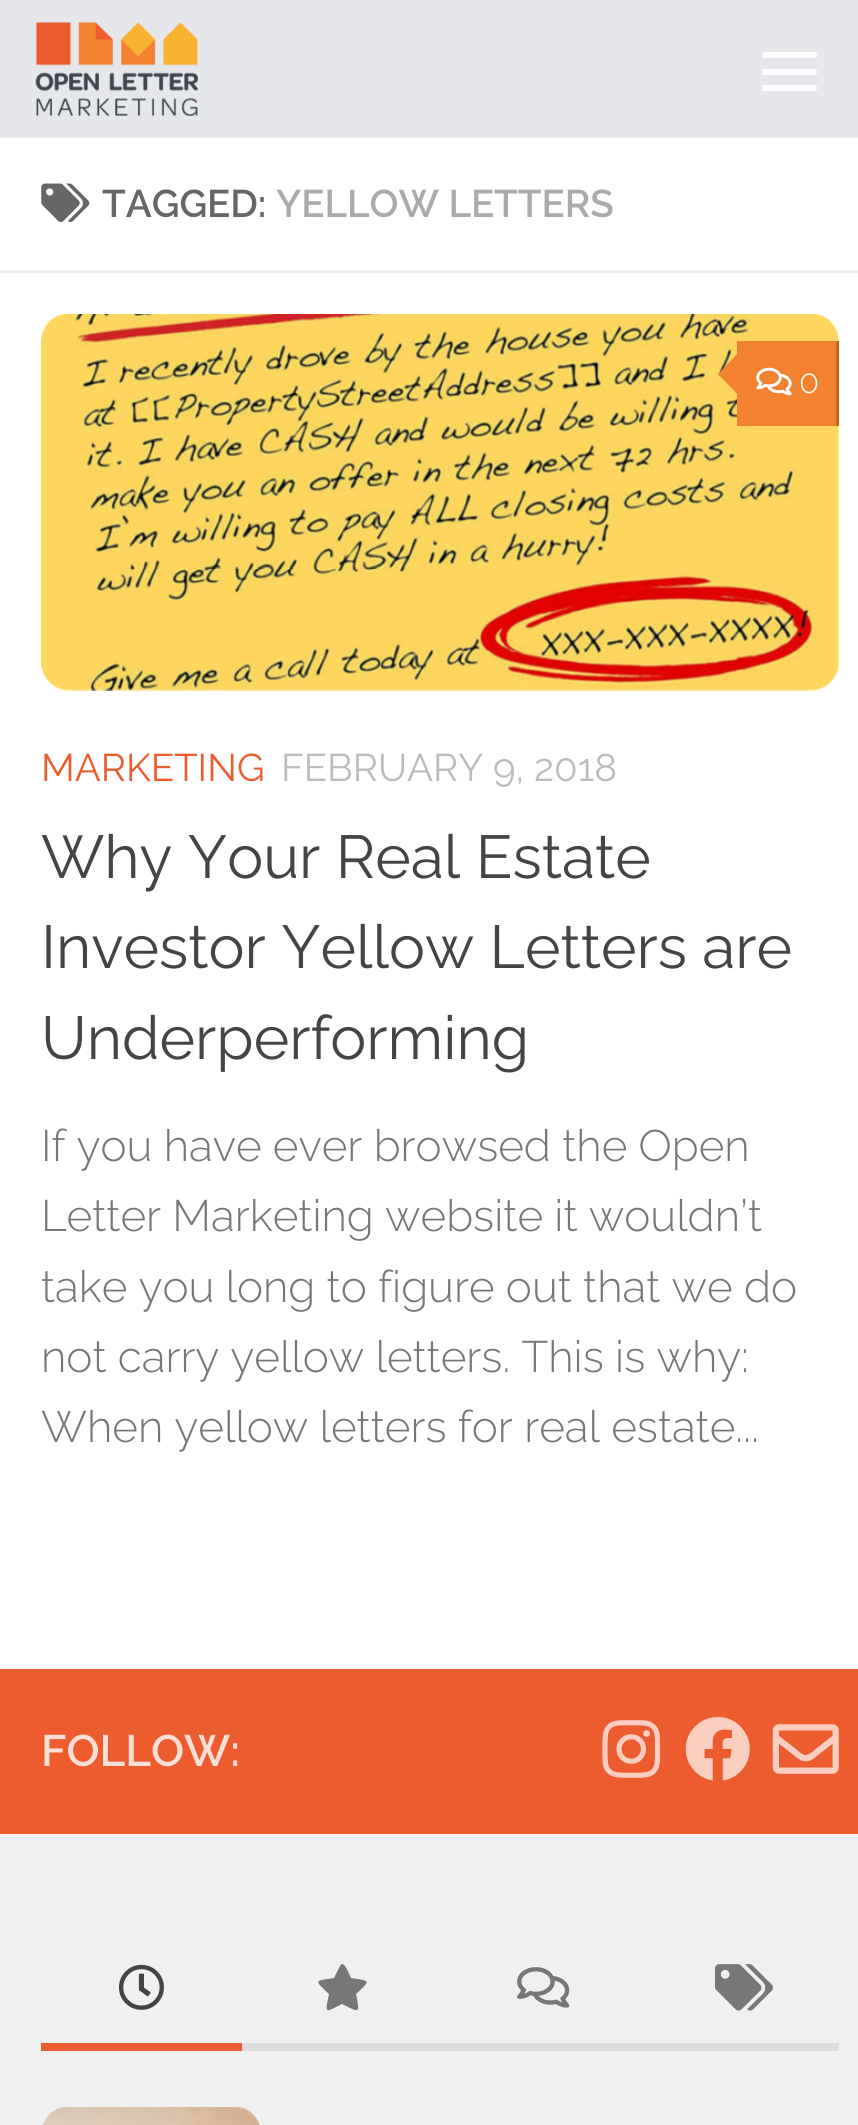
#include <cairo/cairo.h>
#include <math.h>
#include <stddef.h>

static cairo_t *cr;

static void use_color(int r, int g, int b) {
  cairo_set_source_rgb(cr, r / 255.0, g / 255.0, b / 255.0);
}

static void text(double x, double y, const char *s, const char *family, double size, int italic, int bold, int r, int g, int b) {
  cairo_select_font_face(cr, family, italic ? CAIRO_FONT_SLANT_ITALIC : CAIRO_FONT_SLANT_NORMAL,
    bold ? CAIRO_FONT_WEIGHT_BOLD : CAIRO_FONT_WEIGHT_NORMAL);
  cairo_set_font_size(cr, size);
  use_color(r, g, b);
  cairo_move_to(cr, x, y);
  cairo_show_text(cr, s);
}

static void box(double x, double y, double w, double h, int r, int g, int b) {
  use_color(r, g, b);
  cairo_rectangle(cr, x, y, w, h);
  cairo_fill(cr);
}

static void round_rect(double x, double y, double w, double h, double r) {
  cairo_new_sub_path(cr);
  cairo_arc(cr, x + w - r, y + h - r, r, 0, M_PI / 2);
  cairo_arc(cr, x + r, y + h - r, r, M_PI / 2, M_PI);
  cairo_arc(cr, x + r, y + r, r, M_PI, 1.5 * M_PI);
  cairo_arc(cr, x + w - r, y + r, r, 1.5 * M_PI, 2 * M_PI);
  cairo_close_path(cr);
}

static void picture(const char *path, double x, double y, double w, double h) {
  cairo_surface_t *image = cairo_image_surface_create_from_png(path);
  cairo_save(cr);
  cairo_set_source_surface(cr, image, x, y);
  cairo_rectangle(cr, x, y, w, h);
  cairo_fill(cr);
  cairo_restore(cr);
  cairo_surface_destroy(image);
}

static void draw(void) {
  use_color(255, 255, 255);
  cairo_paint(cr);
  box(0, 0, 858, 138, 229, 231, 235);
  picture("img_01.png", 35, 22, 163, 94);
  use_color(255, 255, 255);
  round_rect(762, 52, 55, 6, 3);
  cairo_fill(cr);
  round_rect(762, 69, 55, 6, 3);
  cairo_fill(cr);
  round_rect(762, 85, 55, 6, 3);
  cairo_fill(cr);
  box(0, 270, 858, 3, 238, 238, 238);
  picture("img_02.png", 41, 183, 49, 39);
  picture("img_03.png", 41, 314, 798, 377);
  box(737, 341, 99, 85, 242, 130, 48);
  box(836, 341, 3, 85, 194, 104, 38);
  use_color(242, 130, 48);
  cairo_new_path(cr);
  cairo_move_to(cr, 742, 349);
  cairo_line_to(cr, 742, 399);
  cairo_line_to(cr, 718, 374);
  cairo_close_path(cr);
  cairo_fill(cr);
  picture("img_04.png", 756, 367, 36, 29);
  box(0, 1834, 858, 291, 240, 240, 240);
  box(0, 1669, 858, 165, 237, 92, 47);
  picture("img_05.png", 602, 1720, 59, 58);
  picture("img_06.png", 685, 1717, 65, 64);
  picture("img_07.png", 772, 1724, 67, 50);
  box(242, 2043, 597, 8, 221, 221, 221);
  box(41, 2043, 201, 8, 237, 92, 47);
  picture("img_08.png", 119, 1964, 45, 46);
  use_color(119, 119, 119);
  cairo_new_path(cr);
  cairo_move_to(cr, 340, 1966);
  cairo_curve_to(cr, 344, 1958, 350, 1977, 351, 1978);
  cairo_curve_to(cr, 371, 1981, 371, 1980, 356, 1994);
  cairo_curve_to(cr, 360, 2014, 360, 2013, 342, 2004);
  cairo_curve_to(cr, 324, 2013, 325, 2014, 329, 1994);
  cairo_curve_to(cr, 314, 1980, 314, 1981, 334, 1978);
  cairo_close_path(cr);
  cairo_fill(cr);
  picture("img_09.png", 517, 1967, 53, 41);
  picture("img_10.png", 715, 1964, 58, 47);
  picture("img_11.png", 42, 2107, 219, 18);
  text(102, 217, "TAGGED:", "Raleway SemiBold", 38.5, 0, 0, 102, 102, 102);
  text(276, 217, "YELLOW LETTERS", "Raleway SemiBold", 38.5, 0, 0, 170, 170, 170);
  text(799, 393, "0", "Raleway Light", 33, 0, 0, 255, 255, 255);
  text(41, 781, "MARKETING", "Raleway", 38.5, 0, 0, 237, 92, 47);
  text(281, 781, "FEBRUARY 9, 2018", "Raleway", 38.5, 0, 0, 187, 187, 187);
  text(41, 878, "Why Your Real Estate", "Raleway", 60.5, 0, 0, 68, 68, 68);
  text(41, 968, "Investor Yellow Letters are", "Raleway", 60.5, 0, 0, 68, 68, 68);
  text(41, 1059, "Underperforming", "Raleway", 60.5, 0, 0, 68, 68, 68);
  text(41, 1161, "If you have ever browsed the Open", "Raleway Light", 44, 0, 0, 118, 118, 118);
  text(41, 1231, "Letter Marketing website it wouldn’t", "Raleway Light", 44, 0, 0, 118, 118, 118);
  text(41, 1302, "take you long to figure out that we do", "Raleway Light", 44, 0, 0, 118, 118, 118);
  text(41, 1372, "not carry yellow letters. This is why:", "Raleway Light", 44, 0, 0, 118, 118, 118);
  text(41, 1442, "When yellow letters for real estate...", "Raleway Light", 44, 0, 0, 118, 118, 118);
  text(41, 1766, "FOLLOW:", "Raleway SemiBold", 44, 0, 0, 251, 222, 213);
}

int main(void) {
  cairo_surface_t *surface = cairo_image_surface_create(CAIRO_FORMAT_RGB24, 858, 2125);
  cr = cairo_create(surface);
  cairo_font_options_t *options = cairo_font_options_create();
  cairo_font_options_set_hint_metrics(options, CAIRO_HINT_METRICS_OFF);
  cairo_font_options_set_hint_style(options, CAIRO_HINT_STYLE_NONE);
  cairo_set_font_options(cr, options);
  cairo_set_miter_limit(cr, 4);
  draw();
  cairo_surface_write_to_png(surface, "out.png");
  cairo_font_options_destroy(options);
  cairo_destroy(cr);
  cairo_surface_destroy(surface);
  return 0;
}
